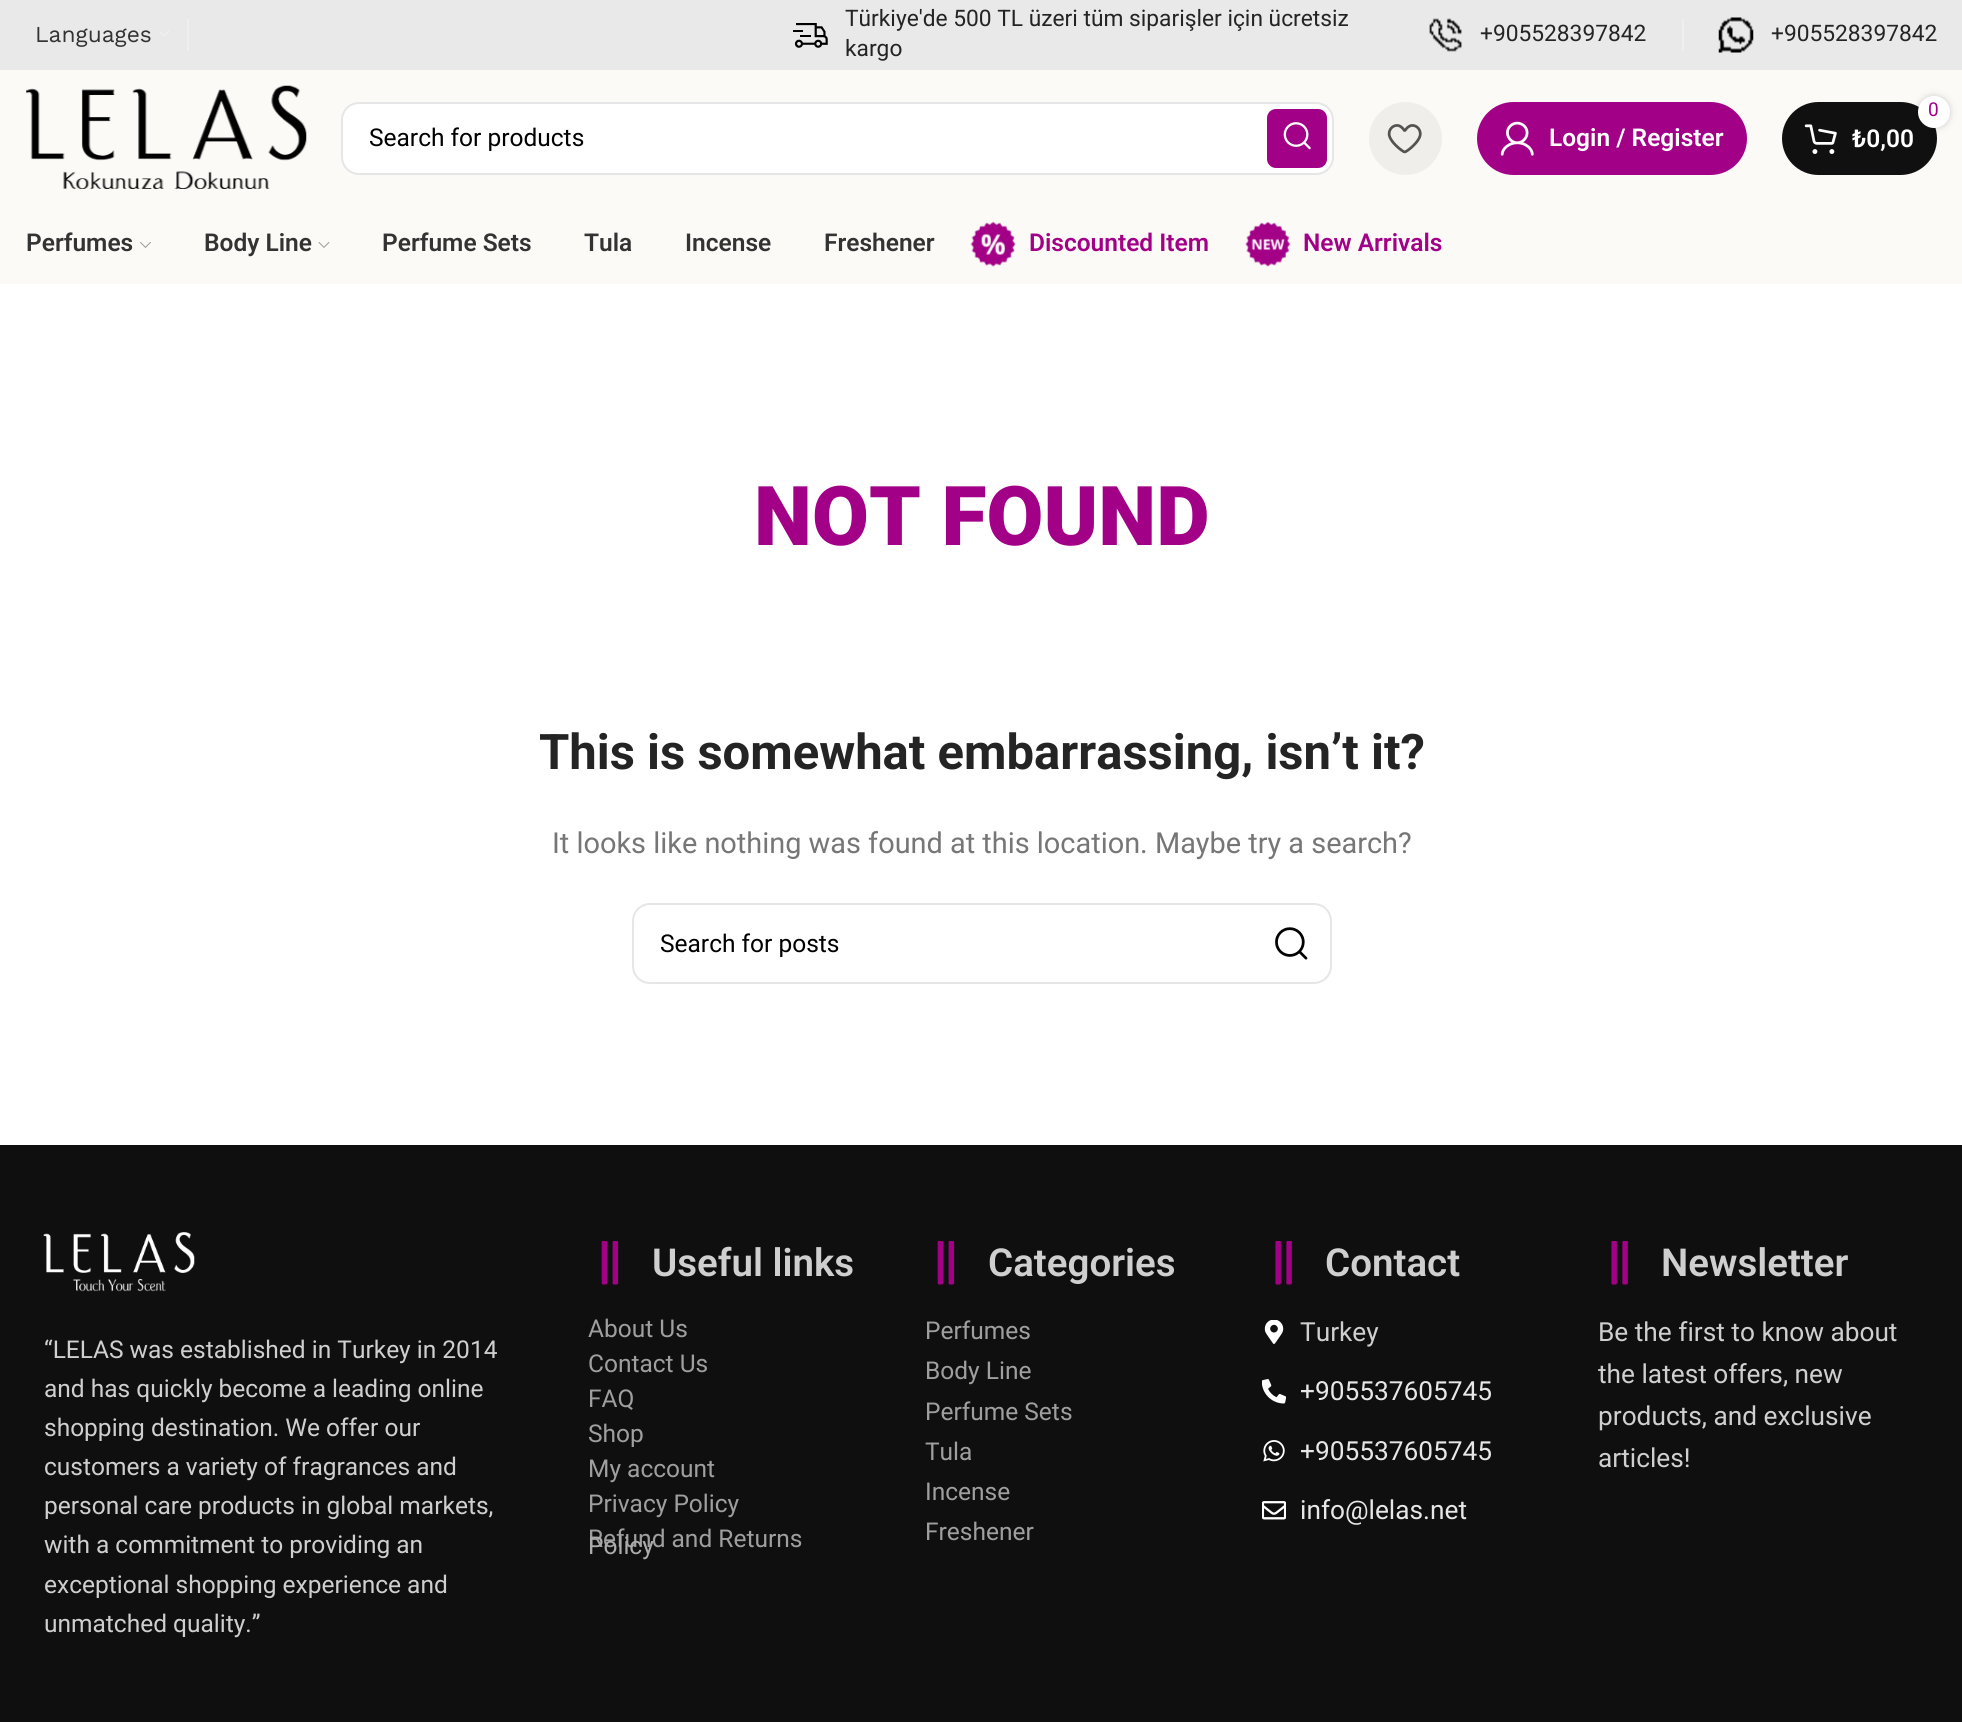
#include <cairo/cairo.h>
#include <math.h>
#include <stddef.h>

static cairo_t *cr;

static void use_color(int r, int g, int b) {
  cairo_set_source_rgb(cr, r / 255.0, g / 255.0, b / 255.0);
}

static void text(double x, double y, const char *s, const char *family, double size, int italic, int bold, int r, int g, int b) {
  cairo_select_font_face(cr, family, italic ? CAIRO_FONT_SLANT_ITALIC : CAIRO_FONT_SLANT_NORMAL,
    bold ? CAIRO_FONT_WEIGHT_BOLD : CAIRO_FONT_WEIGHT_NORMAL);
  cairo_set_font_size(cr, size);
  use_color(r, g, b);
  cairo_move_to(cr, x, y);
  cairo_show_text(cr, s);
}

static void box(double x, double y, double w, double h, int r, int g, int b) {
  use_color(r, g, b);
  cairo_rectangle(cr, x, y, w, h);
  cairo_fill(cr);
}

static void round_rect(double x, double y, double w, double h, double r) {
  cairo_new_sub_path(cr);
  cairo_arc(cr, x + w - r, y + h - r, r, 0, M_PI / 2);
  cairo_arc(cr, x + r, y + h - r, r, M_PI / 2, M_PI);
  cairo_arc(cr, x + r, y + r, r, M_PI, 1.5 * M_PI);
  cairo_arc(cr, x + w - r, y + r, r, 1.5 * M_PI, 2 * M_PI);
  cairo_close_path(cr);
}

static void shadow(double x, double y, double w, double h, double r, double blur, double alpha) {
  cairo_push_group_with_content(cr, CAIRO_CONTENT_ALPHA);
  cairo_set_operator(cr, CAIRO_OPERATOR_SOURCE);
  for (int i = 15; i >= -15 && fmin(w, h) + blur * i / 3 > 0; i -= 2) {
    double e = blur * i / 6;
    cairo_set_source_rgba(cr, 0, 0, 0, alpha * erfc((i - 1) / 8.5) / 2);
    round_rect(x - e, y - e, w + 2 * e, h + 2 * e, fmax(0, fmin(r + e + blur * .6, fmin(w, h) / 2 + e)));
    cairo_fill(cr);
  }
  cairo_pattern_t *soft = cairo_pop_group(cr);
  cairo_mask(cr, soft);
  cairo_pattern_destroy(soft);
}

static void picture(const char *path, double x, double y, double w, double h) {
  cairo_surface_t *image = cairo_image_surface_create_from_png(path);
  cairo_save(cr);
  cairo_set_source_surface(cr, image, x, y);
  cairo_rectangle(cr, x, y, w, h);
  cairo_fill(cr);
  cairo_restore(cr);
  cairo_surface_destroy(image);
}

static void draw(void) {
  use_color(255, 255, 255);
  cairo_paint(cr);
  box(0, 0, 1962, 70, 233, 233, 233);
  picture("img_01.png", 159, 31, 10, 5);
  box(187, 19, 2, 32, 239, 239, 239);
  picture("img_02.png", 793, 23, 35, 25);
  picture("img_03.png", 1429, 18, 33, 34);
  box(1682, 19, 2, 32, 239, 239, 239);
  picture("img_04.png", 1718, 17, 36, 36);
  box(0, 70, 1962, 214, 251, 250, 247);
  picture("img_05.png", 26, 85, 281, 104);
  use_color(255, 255, 255);
  round_rect(341, 102, 993, 73, 18);
  cairo_fill(cr);
  round_rect(342, 103, 991, 71, 17);
  cairo_set_source_rgba(cr, 0, 0, 0, 0.1);
  cairo_stroke(cr);
  use_color(163, 0, 136);
  round_rect(1267, 109, 60, 59, 9);
  cairo_fill(cr);
  picture("img_06.png", 1283, 122, 28, 28);
  use_color(239, 238, 235);
  cairo_arc(cr, 1405.5, 138.5, 36.5, 0, 2 * M_PI);
  cairo_fill(cr);
  picture("img_07.png", 1387, 124, 35, 30);
  use_color(163, 0, 136);
  round_rect(1477, 102, 270, 73, 36.5);
  cairo_fill(cr);
  picture("img_08.png", 1500, 121, 34, 35);
  use_color(16, 16, 16);
  round_rect(1782, 102, 155, 73, 36.5);
  cairo_fill(cr);
  use_color(0, 0, 0);
  shadow(1918, 96, 32, 32, 16, 3.5, 0.17);
  use_color(255, 255, 255);
  cairo_arc(cr, 1934, 112, 16, 0, 2 * M_PI);
  cairo_fill(cr);
  picture("img_09.png", 1804, 124, 33, 30);
  picture("img_10.png", 140, 242, 11, 6);
  picture("img_11.png", 318, 242, 12, 6);
  picture("img_12.png", 970, 221, 46, 46);
  picture("img_13.png", 1245, 221, 46, 46);
  round_rect(633, 904, 698, 79, 17);
  use_color(230, 230, 230);
  cairo_stroke(cr);
  picture("img_14.png", 1275, 927, 33, 33);
  box(0, 1145, 1962, 577, 15, 15, 15);
  picture("img_15.png", 43, 1232, 152, 60);
  picture("img_16.png", 601, 1241, 18, 44);
  picture("img_16.png", 937, 1241, 18, 44);
  picture("img_17.png", 1275, 1241, 17, 44);
  picture("img_18.png", 1264, 1320, 20, 24);
  picture("img_19.png", 1262, 1379, 24, 25);
  picture("img_20.png", 1263, 1440, 22, 22);
  picture("img_21.png", 1262, 1501, 24, 19);
  picture("img_17.png", 1611, 1241, 17, 44);
  text(35, 42, "Languages", "Work Sans", 22.75, 0, 0, 51, 51, 51);
  text(845, 26, "Türkiye'de 500 TL üzeri tüm siparişler için ücretsiz", "Roboto", 22.75, 0, 0, 36, 36, 36);
  text(845, 56, "kargo", "Roboto", 22.75, 0, 0, 36, 36, 36);
  text(1480, 41, "+905528397842", "Roboto", 22.75, 0, 0, 36, 36, 36);
  text(1771, 41, "+905528397842", "Roboto", 22.75, 0, 0, 36, 36, 36);
  text(369, 146, "Search for products", "Roboto", 24.5, 0, 0, 0, 0, 0);
  text(1549, 146, "Login / Register", "Roboto SemiBold", 24.5, 0, 0, 255, 255, 255);
  text(1928, 116, "0", "Roboto", 19, 0, 0, 163, 0, 136);
  text(1852, 147, "₺0,00", "Roboto SemiBold", 24.5, 0, 0, 255, 255, 255);
  text(26, 251, "Perfumes", "Roboto SemiBold", 24.5, 0, 0, 51, 51, 51);
  text(204, 251, "Body Line", "Roboto SemiBold", 24.5, 0, 0, 51, 51, 51);
  text(382, 251, "Perfume Sets", "Roboto SemiBold", 24.5, 0, 0, 51, 51, 51);
  text(584, 251, "Tula", "Roboto SemiBold", 24.5, 0, 0, 51, 51, 51);
  text(685, 251, "Incense", "Roboto SemiBold", 24.5, 0, 0, 51, 51, 51);
  text(824, 251, "Freshener", "Roboto SemiBold", 24.5, 0, 0, 51, 51, 51);
  text(1029, 251, "Discounted Item", "Roboto SemiBold", 24.5, 0, 0, 163, 0, 136);
  text(1303, 251, "New Arrivals", "Roboto SemiBold", 24.5, 0, 0, 163, 0, 136);
  text(754, 545, "NOT FOUND", "Roboto Black", 82.5, 0, 0, 163, 0, 136);
  text(539, 769, "This is somewhat embarrassing, isn’t it?", "Roboto", 49, 0, 1, 36, 36, 36);
  text(552, 853, "It looks like nothing was found at this location. Maybe try a search?", "Roboto", 28.9, 0, 0, 118, 118, 118);
  text(660, 952, "Search for posts", "Roboto", 24.5, 0, 0, 0, 0, 0);
  text(44, 1358, "“LELAS was established in Turkey in 2014", "Roboto", 24.5, 0, 0, 207, 207, 207);
  text(44, 1397, "and has quickly become a leading online", "Roboto", 24.5, 0, 0, 207, 207, 207);
  text(44, 1436, "shopping destination. We offer our", "Roboto", 24.5, 0, 0, 207, 207, 207);
  text(44, 1475, "customers a variety of fragrances and", "Roboto", 24.5, 0, 0, 207, 207, 207);
  text(44, 1514, "personal care products in global markets,", "Roboto", 24.5, 0, 0, 207, 207, 207);
  text(44, 1553, "with a commitment to providing an", "Roboto", 24.5, 0, 0, 207, 207, 207);
  text(44, 1593, "exceptional shopping experience and", "Roboto", 24.5, 0, 0, 207, 207, 207);
  text(44, 1632, "unmatched quality.”", "Roboto", 24.5, 0, 0, 207, 207, 207);
  text(652, 1276, "Useful links", "Roboto SemiBold", 38.5, 0, 0, 207, 207, 207);
  text(588, 1337, "About Us", "Roboto", 24.5, 0, 0, 159, 159, 159);
  text(588, 1372, "Contact Us", "Roboto", 24.5, 0, 0, 159, 159, 159);
  text(588, 1407, "FAQ", "Roboto", 24.5, 0, 0, 159, 159, 159);
  text(588, 1442, "Shop", "Roboto", 24.5, 0, 0, 159, 159, 159);
  text(588, 1477, "My account", "Roboto", 24.5, 0, 0, 159, 159, 159);
  text(588, 1512, "Privacy Policy", "Roboto", 24.5, 0, 0, 159, 159, 159);
  text(588, 1547, "Refund and Returns", "Roboto", 24.5, 0, 0, 159, 159, 159);
  text(588, 1554, "Policy", "Roboto", 24.5, 0, 0, 172, 172, 172);
  text(988, 1276, "Categories", "Roboto SemiBold", 38.5, 0, 0, 207, 207, 207);
  text(925, 1339, "Perfumes", "Roboto", 24.5, 0, 0, 159, 159, 159);
  text(925, 1379, "Body Line", "Roboto", 24.5, 0, 0, 159, 159, 159);
  text(925, 1420, "Perfume Sets", "Roboto", 24.5, 0, 0, 159, 159, 159);
  text(925, 1460, "Tula", "Roboto", 24.5, 0, 0, 159, 159, 159);
  text(925, 1500, "Incense", "Roboto", 24.5, 0, 0, 159, 159, 159);
  text(925, 1540, "Freshener", "Roboto", 24.5, 0, 0, 159, 159, 159);
  text(1325, 1276, "Contact", "Roboto SemiBold", 38.5, 0, 0, 207, 207, 207);
  text(1300, 1341, "Turkey", "Roboto", 26.25, 0, 0, 207, 207, 207);
  text(1300, 1400, "+905537605745", "Roboto", 26.25, 0, 0, 231, 231, 231);
  text(1300, 1460, "+905537605745", "Roboto", 26.25, 0, 0, 231, 231, 231);
  text(1300, 1519, "info@lelas.net", "Roboto", 26.25, 0, 0, 231, 231, 231);
  text(1661, 1276, "Newsletter", "Roboto SemiBold", 38.5, 0, 0, 207, 207, 207);
  text(1598, 1341, "Be the first to know about", "Roboto", 26.25, 0, 0, 207, 207, 207);
  text(1598, 1383, "the latest offers, new", "Roboto", 26.25, 0, 0, 207, 207, 207);
  text(1598, 1425, "products, and exclusive", "Roboto", 26.25, 0, 0, 207, 207, 207);
  text(1598, 1467, "articles!", "Roboto", 26.25, 0, 0, 207, 207, 207);
}

int main(void) {
  cairo_surface_t *surface = cairo_image_surface_create(CAIRO_FORMAT_RGB24, 1962, 1722);
  cr = cairo_create(surface);
  cairo_font_options_t *options = cairo_font_options_create();
  cairo_font_options_set_hint_metrics(options, CAIRO_HINT_METRICS_OFF);
  cairo_font_options_set_hint_style(options, CAIRO_HINT_STYLE_NONE);
  cairo_set_font_options(cr, options);
  cairo_set_miter_limit(cr, 4);
  draw();
  cairo_surface_write_to_png(surface, "out.png");
  cairo_font_options_destroy(options);
  cairo_destroy(cr);
  cairo_surface_destroy(surface);
  return 0;
}
